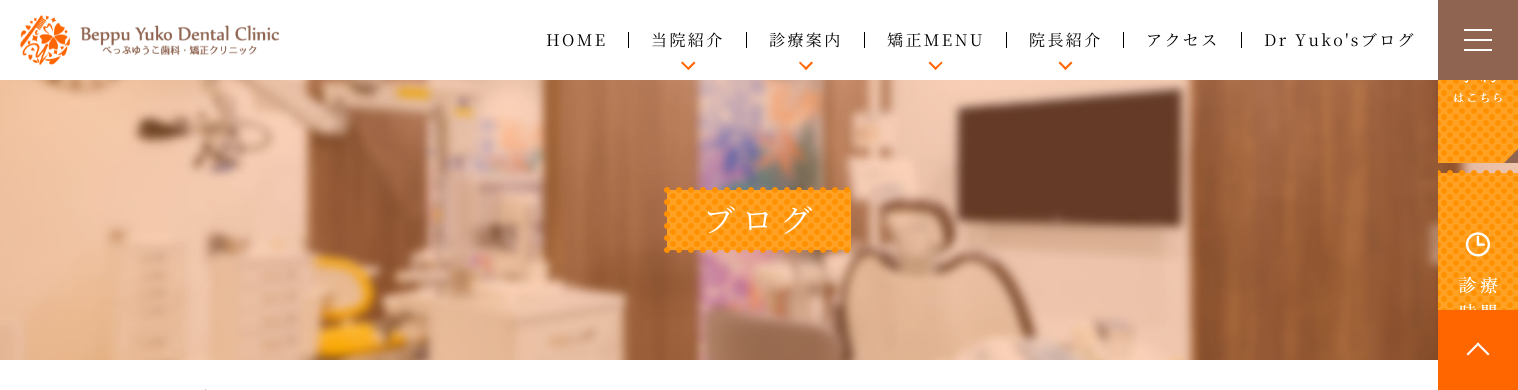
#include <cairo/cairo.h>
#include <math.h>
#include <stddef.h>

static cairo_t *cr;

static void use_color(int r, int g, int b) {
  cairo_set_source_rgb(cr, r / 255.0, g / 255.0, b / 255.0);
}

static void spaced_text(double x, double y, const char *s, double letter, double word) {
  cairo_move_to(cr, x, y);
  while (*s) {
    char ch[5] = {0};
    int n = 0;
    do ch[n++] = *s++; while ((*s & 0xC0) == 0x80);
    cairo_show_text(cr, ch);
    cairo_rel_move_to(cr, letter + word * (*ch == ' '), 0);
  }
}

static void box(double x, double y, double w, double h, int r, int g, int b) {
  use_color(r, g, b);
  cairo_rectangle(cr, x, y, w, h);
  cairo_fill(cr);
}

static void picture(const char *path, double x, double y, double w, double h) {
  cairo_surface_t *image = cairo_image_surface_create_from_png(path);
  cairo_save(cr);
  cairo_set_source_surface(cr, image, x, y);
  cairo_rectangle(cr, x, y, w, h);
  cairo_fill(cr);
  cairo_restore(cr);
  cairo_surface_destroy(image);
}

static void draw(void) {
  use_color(255, 255, 255);
  cairo_paint(cr);
  picture("img_04.png", 0, 80, 1518, 280);
  box(1438, 80, 80, 83, 255, 161, 37);
  cairo_save(cr);
  cairo_rectangle(cr, 1438, 0, 80, 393);
  cairo_clip(cr);
  cairo_new_path(cr);
  cairo_move_to(cr, 1438, -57);
  cairo_line_to(cr, 1438, 159.2);
  use_color(255, 145, 0);
  cairo_set_line_width(cr, 5.9);
  cairo_set_line_cap(cr, CAIRO_LINE_CAP_ROUND);
  cairo_set_dash(cr, (double[]){0, 12}, 2, 0);
  cairo_stroke(cr);
  cairo_restore(cr);
  cairo_new_path(cr);
  cairo_move_to(cr, 1450, -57);
  cairo_line_to(cr, 1450, 159.2);
  use_color(255, 145, 0);
  cairo_set_line_width(cr, 5.9);
  cairo_set_line_cap(cr, CAIRO_LINE_CAP_ROUND);
  cairo_set_dash(cr, (double[]){0, 12}, 2, 0);
  cairo_stroke(cr);
  cairo_new_path(cr);
  cairo_move_to(cr, 1462, -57);
  cairo_line_to(cr, 1462, 159.2);
  cairo_stroke(cr);
  cairo_new_path(cr);
  cairo_move_to(cr, 1474, -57);
  cairo_line_to(cr, 1474, 159.2);
  cairo_stroke(cr);
  cairo_new_path(cr);
  cairo_move_to(cr, 1486, -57);
  cairo_line_to(cr, 1486, 159.2);
  cairo_stroke(cr);
  cairo_new_path(cr);
  cairo_move_to(cr, 1498, -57);
  cairo_line_to(cr, 1498, 159.2);
  cairo_stroke(cr);
  cairo_new_path(cr);
  cairo_move_to(cr, 1510, -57);
  cairo_line_to(cr, 1510, 159.2);
  cairo_stroke(cr);
  cairo_new_path(cr);
  cairo_move_to(cr, 1444, -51);
  cairo_line_to(cr, 1444, 153.2);
  cairo_stroke(cr);
  cairo_new_path(cr);
  cairo_move_to(cr, 1456, -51);
  cairo_line_to(cr, 1456, 153.2);
  cairo_stroke(cr);
  cairo_new_path(cr);
  cairo_move_to(cr, 1468, -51);
  cairo_line_to(cr, 1468, 153.2);
  cairo_stroke(cr);
  cairo_new_path(cr);
  cairo_move_to(cr, 1480, -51);
  cairo_line_to(cr, 1480, 153.2);
  cairo_stroke(cr);
  cairo_new_path(cr);
  cairo_move_to(cr, 1492, -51);
  cairo_line_to(cr, 1492, 153.2);
  cairo_stroke(cr);
  cairo_new_path(cr);
  cairo_move_to(cr, 1504, -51);
  cairo_line_to(cr, 1504, 153.2);
  cairo_stroke(cr);
  cairo_new_path(cr);
  cairo_move_to(cr, 1516, -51);
  cairo_line_to(cr, 1516, 153.2);
  cairo_stroke(cr);
  picture("img_01.png", 1454, 80, 64, 83);
  box(1438, 173, 80, 137, 255, 161, 37);
  cairo_save(cr);
  cairo_rectangle(cr, 1438, 0, 80, 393);
  cairo_clip(cr);
  cairo_new_path(cr);
  cairo_move_to(cr, 1438, 173);
  cairo_line_to(cr, 1438, 389.2);
  use_color(255, 145, 0);
  cairo_stroke(cr);
  cairo_restore(cr);
  cairo_new_path(cr);
  cairo_move_to(cr, 1450, 173);
  cairo_line_to(cr, 1450, 389.2);
  use_color(255, 145, 0);
  cairo_stroke(cr);
  cairo_new_path(cr);
  cairo_move_to(cr, 1462, 173);
  cairo_line_to(cr, 1462, 389.2);
  cairo_stroke(cr);
  cairo_new_path(cr);
  cairo_move_to(cr, 1474, 173);
  cairo_line_to(cr, 1474, 389.2);
  cairo_stroke(cr);
  cairo_new_path(cr);
  cairo_move_to(cr, 1486, 173);
  cairo_line_to(cr, 1486, 389.2);
  cairo_stroke(cr);
  cairo_new_path(cr);
  cairo_move_to(cr, 1498, 173);
  cairo_line_to(cr, 1498, 389.2);
  cairo_stroke(cr);
  cairo_new_path(cr);
  cairo_move_to(cr, 1510, 173);
  cairo_line_to(cr, 1510, 389.2);
  cairo_stroke(cr);
  cairo_new_path(cr);
  cairo_move_to(cr, 1444, 179);
  cairo_line_to(cr, 1444, 383.2);
  cairo_stroke(cr);
  cairo_new_path(cr);
  cairo_move_to(cr, 1456, 179);
  cairo_line_to(cr, 1456, 383.2);
  cairo_stroke(cr);
  cairo_new_path(cr);
  cairo_move_to(cr, 1468, 179);
  cairo_line_to(cr, 1468, 383.2);
  cairo_stroke(cr);
  cairo_new_path(cr);
  cairo_move_to(cr, 1480, 179);
  cairo_line_to(cr, 1480, 383.2);
  cairo_stroke(cr);
  cairo_new_path(cr);
  cairo_move_to(cr, 1492, 179);
  cairo_line_to(cr, 1492, 383.2);
  cairo_stroke(cr);
  cairo_new_path(cr);
  cairo_move_to(cr, 1504, 179);
  cairo_line_to(cr, 1504, 383.2);
  cairo_stroke(cr);
  cairo_new_path(cr);
  cairo_move_to(cr, 1516, 179);
  cairo_line_to(cr, 1516, 383.2);
  cairo_stroke(cr);
  picture("img_02.png", 1459, 232, 39, 78);
  picture("img_03.png", 20, 15, 260, 50);
  box(628, 32, 1, 16, 0, 0, 0);
  box(746, 32, 1, 16, 0, 0, 0);
  use_color(255, 102, 0);
  cairo_new_path(cr);
  cairo_move_to(cr, 694, 61.5);
  cairo_line_to(cr, 695.5, 63);
  cairo_line_to(cr, 688.5, 70);
  cairo_line_to(cr, 687, 68.5);
  cairo_close_path(cr);
  cairo_fill(cr);
  cairo_new_path(cr);
  cairo_move_to(cr, 682.5, 61.5);
  cairo_line_to(cr, 689.5, 68.5);
  cairo_line_to(cr, 688.5, 70);
  cairo_line_to(cr, 681, 63);
  cairo_close_path(cr);
  cairo_fill(cr);
  box(864, 32, 1, 16, 0, 0, 0);
  use_color(255, 102, 0);
  cairo_new_path(cr);
  cairo_move_to(cr, 811.5, 61.5);
  cairo_line_to(cr, 813, 63);
  cairo_line_to(cr, 806, 70);
  cairo_line_to(cr, 804.5, 68.5);
  cairo_close_path(cr);
  cairo_fill(cr);
  cairo_new_path(cr);
  cairo_move_to(cr, 800, 61.5);
  cairo_line_to(cr, 807.5, 68.5);
  cairo_line_to(cr, 806, 70);
  cairo_line_to(cr, 799, 63);
  cairo_close_path(cr);
  cairo_fill(cr);
  box(1006, 32, 1, 16, 0, 0, 0);
  use_color(255, 102, 0);
  cairo_new_path(cr);
  cairo_move_to(cr, 941.5, 61.5);
  cairo_line_to(cr, 942.5, 63);
  cairo_line_to(cr, 935.5, 70);
  cairo_line_to(cr, 934, 68.5);
  cairo_close_path(cr);
  cairo_fill(cr);
  cairo_new_path(cr);
  cairo_move_to(cr, 930, 61.5);
  cairo_line_to(cr, 937, 68.5);
  cairo_line_to(cr, 935.5, 70);
  cairo_line_to(cr, 928.5, 63);
  cairo_close_path(cr);
  cairo_fill(cr);
  box(1123, 32, 1, 16, 0, 0, 0);
  use_color(255, 102, 0);
  cairo_new_path(cr);
  cairo_move_to(cr, 1071, 61.5);
  cairo_line_to(cr, 1072.5, 63);
  cairo_line_to(cr, 1065.5, 70);
  cairo_line_to(cr, 1064, 68.5);
  cairo_close_path(cr);
  cairo_fill(cr);
  cairo_new_path(cr);
  cairo_move_to(cr, 1060, 61.5);
  cairo_line_to(cr, 1067, 68.5);
  cairo_line_to(cr, 1065.5, 70);
  cairo_line_to(cr, 1058.5, 63);
  cairo_close_path(cr);
  cairo_fill(cr);
  box(1241, 32, 1, 16, 0, 0, 0);
  box(1438, 0, 80, 80, 143, 101, 82);
  box(1464, 29, 28, 2, 255, 255, 255);
  box(1464, 39, 28, 2, 255, 255, 255);
  box(1464, 49, 28, 2, 255, 255, 255);
  box(667, 190, 184, 60, 255, 161, 37);
  cairo_new_path(cr);
  cairo_move_to(cr, 667, 190);
  cairo_line_to(cr, 847.2, 190);
  use_color(255, 145, 0);
  cairo_stroke(cr);
  cairo_new_path(cr);
  cairo_move_to(cr, 667, 202);
  cairo_line_to(cr, 847.2, 202);
  cairo_stroke(cr);
  cairo_new_path(cr);
  cairo_move_to(cr, 667, 214);
  cairo_line_to(cr, 847.2, 214);
  cairo_stroke(cr);
  cairo_new_path(cr);
  cairo_move_to(cr, 667, 226);
  cairo_line_to(cr, 847.2, 226);
  cairo_stroke(cr);
  cairo_new_path(cr);
  cairo_move_to(cr, 667, 238);
  cairo_line_to(cr, 847.2, 238);
  cairo_stroke(cr);
  cairo_new_path(cr);
  cairo_move_to(cr, 667, 250);
  cairo_line_to(cr, 847.2, 250);
  cairo_stroke(cr);
  cairo_new_path(cr);
  cairo_move_to(cr, 673, 196);
  cairo_line_to(cr, 841.2, 196);
  cairo_stroke(cr);
  cairo_new_path(cr);
  cairo_move_to(cr, 673, 208);
  cairo_line_to(cr, 841.2, 208);
  cairo_stroke(cr);
  cairo_new_path(cr);
  cairo_move_to(cr, 673, 220);
  cairo_line_to(cr, 841.2, 220);
  cairo_stroke(cr);
  cairo_new_path(cr);
  cairo_move_to(cr, 673, 232);
  cairo_line_to(cr, 841.2, 232);
  cairo_stroke(cr);
  cairo_new_path(cr);
  cairo_move_to(cr, 673, 244);
  cairo_line_to(cr, 841.2, 244);
  cairo_stroke(cr);
  use_color(0, 0, 0);
  cairo_new_path(cr);
  cairo_move_to(cr, 205.5, 389.5);
  cairo_line_to(cr, 210, 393.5);
  cairo_line_to(cr, 209, 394);
  cairo_line_to(cr, 205, 390);
  cairo_close_path(cr);
  cairo_fill(cr);
  box(1438, 310, 80, 80, 255, 102, 0);
  use_color(255, 255, 255);
  cairo_new_path(cr);
  cairo_move_to(cr, 1466.5, 354);
  cairo_line_to(cr, 1478, 342.5);
  cairo_line_to(cr, 1479.5, 344);
  cairo_line_to(cr, 1468, 355.5);
  cairo_close_path(cr);
  cairo_fill(cr);
  cairo_new_path(cr);
  cairo_move_to(cr, 1476.5, 344);
  cairo_line_to(cr, 1478, 342.5);
  cairo_line_to(cr, 1489.5, 354);
  cairo_line_to(cr, 1488, 355.5);
  cairo_close_path(cr);
  cairo_fill(cr);
  cairo_select_font_face(cr, "Noto Serif JP", CAIRO_FONT_SLANT_NORMAL, CAIRO_FONT_WEIGHT_NORMAL);
  cairo_set_font_size(cr, 16);
  use_color(0, 0, 0);
  spaced_text(546, 46, "HOME", 2.4, 0);
  spaced_text(651, 46, "当院紹介", 2.4, 0);
  spaced_text(769, 46, "診療案内", 2.4, 0);
  spaced_text(887, 46, "矯正MENU", 2.4, 0);
  spaced_text(1029, 46, "院長紹介", 2.4, 0);
  spaced_text(1146, 46, "アクセス", 2.4, 0);
  spaced_text(1264, 46, "Dr Yuko'sブログ", 2.4, 0);
  cairo_set_font_size(cr, 32);
  use_color(255, 255, 255);
  spaced_text(703, 232, "ブログ", 6.5, 0);
}

int main(void) {
  cairo_surface_t *surface = cairo_image_surface_create(CAIRO_FORMAT_RGB24, 1518, 390);
  cr = cairo_create(surface);
  cairo_font_options_t *options = cairo_font_options_create();
  cairo_font_options_set_hint_metrics(options, CAIRO_HINT_METRICS_OFF);
  cairo_font_options_set_hint_style(options, CAIRO_HINT_STYLE_NONE);
  cairo_set_font_options(cr, options);
  cairo_set_miter_limit(cr, 4);
  draw();
  cairo_surface_write_to_png(surface, "out.png");
  cairo_font_options_destroy(options);
  cairo_destroy(cr);
  cairo_surface_destroy(surface);
  return 0;
}
